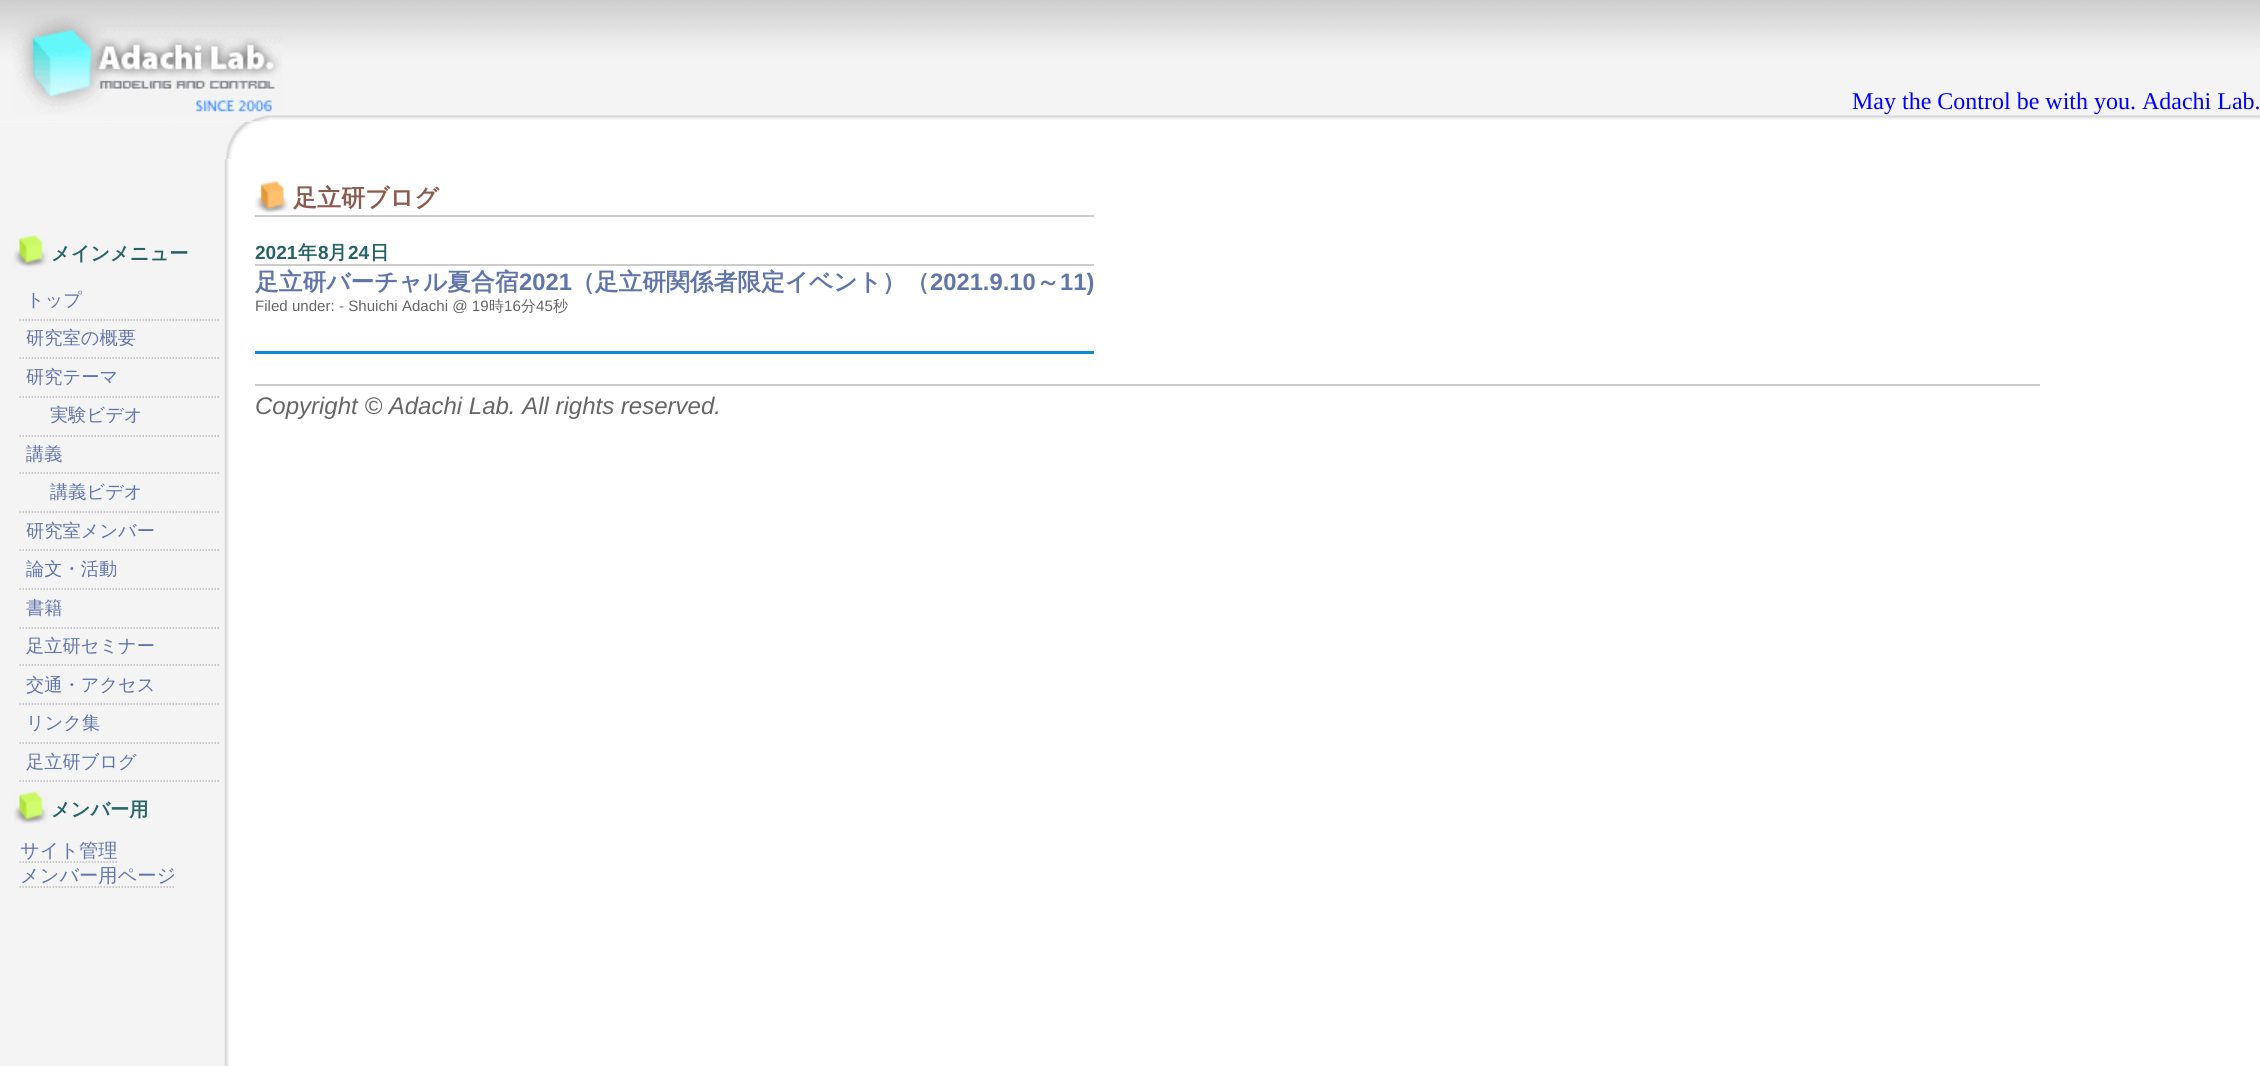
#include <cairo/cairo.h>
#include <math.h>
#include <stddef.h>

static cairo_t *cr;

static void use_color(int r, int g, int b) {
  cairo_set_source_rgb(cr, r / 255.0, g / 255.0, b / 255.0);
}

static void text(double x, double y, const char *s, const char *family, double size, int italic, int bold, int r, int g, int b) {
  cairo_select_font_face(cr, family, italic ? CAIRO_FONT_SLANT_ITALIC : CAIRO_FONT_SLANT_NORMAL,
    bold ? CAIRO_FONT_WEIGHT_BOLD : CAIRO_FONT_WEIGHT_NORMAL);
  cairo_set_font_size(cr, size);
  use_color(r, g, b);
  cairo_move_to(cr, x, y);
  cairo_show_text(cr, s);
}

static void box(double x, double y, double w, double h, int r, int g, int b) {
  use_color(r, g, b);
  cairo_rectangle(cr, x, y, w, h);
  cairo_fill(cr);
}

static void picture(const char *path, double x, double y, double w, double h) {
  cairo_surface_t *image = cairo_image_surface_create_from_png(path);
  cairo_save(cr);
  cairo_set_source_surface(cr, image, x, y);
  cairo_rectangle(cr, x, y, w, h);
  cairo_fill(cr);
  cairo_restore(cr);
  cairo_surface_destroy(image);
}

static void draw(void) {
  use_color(255, 255, 255);
  cairo_paint(cr);
  picture("img_01.png", 0, 121, 229, 945);
  picture("img_05.png", 224, 121, 32, 38);
  picture("img_02.png", 0, 0, 2260, 122);
  picture("img_03.png", 0, 115, 270, 7);
  picture("img_04.png", 12, 14, 270, 100);
  picture("img_06.png", 13, 235, 35, 33);
  cairo_new_path(cr);
  cairo_move_to(cr, 19.5, 320);
  cairo_line_to(cr, 219, 320);
  use_color(187, 187, 187);
  cairo_set_line_width(cr, 1.5);
  cairo_set_dash(cr, (double[]){1.5, 1.5}, 2, 0);
  cairo_stroke(cr);
  cairo_new_path(cr);
  cairo_move_to(cr, 19.5, 358);
  cairo_line_to(cr, 219, 358);
  cairo_stroke(cr);
  cairo_new_path(cr);
  cairo_move_to(cr, 19.5, 397);
  cairo_line_to(cr, 219, 397);
  cairo_stroke(cr);
  cairo_new_path(cr);
  cairo_move_to(cr, 19.5, 436);
  cairo_line_to(cr, 219, 436);
  cairo_stroke(cr);
  cairo_new_path(cr);
  cairo_move_to(cr, 19.5, 473);
  cairo_line_to(cr, 219, 473);
  cairo_stroke(cr);
  cairo_new_path(cr);
  cairo_move_to(cr, 19.5, 512);
  cairo_line_to(cr, 219, 512);
  cairo_stroke(cr);
  cairo_new_path(cr);
  cairo_move_to(cr, 19.5, 550);
  cairo_line_to(cr, 219, 550);
  cairo_stroke(cr);
  cairo_new_path(cr);
  cairo_move_to(cr, 19.5, 589);
  cairo_line_to(cr, 219, 589);
  cairo_stroke(cr);
  cairo_new_path(cr);
  cairo_move_to(cr, 19.5, 628);
  cairo_line_to(cr, 219, 628);
  cairo_stroke(cr);
  cairo_new_path(cr);
  cairo_move_to(cr, 19.5, 665);
  cairo_line_to(cr, 219, 665);
  cairo_stroke(cr);
  cairo_new_path(cr);
  cairo_move_to(cr, 19.5, 704);
  cairo_line_to(cr, 219, 704);
  cairo_stroke(cr);
  cairo_new_path(cr);
  cairo_move_to(cr, 19.5, 743);
  cairo_line_to(cr, 219, 743);
  cairo_stroke(cr);
  cairo_new_path(cr);
  cairo_move_to(cr, 19.5, 781);
  cairo_line_to(cr, 219, 781);
  cairo_stroke(cr);
  picture("img_07.png", 13, 791, 35, 33);
  cairo_new_path(cr);
  cairo_move_to(cr, 19.5, 862);
  cairo_line_to(cr, 117, 862);
  cairo_stroke(cr);
  cairo_new_path(cr);
  cairo_move_to(cr, 19.5, 887);
  cairo_line_to(cr, 175.5, 887);
  cairo_stroke(cr);
  picture("img_08.png", 255, 181, 34, 33);
  box(255, 215, 839, 2, 204, 204, 204);
  box(255, 264, 839, 2, 204, 204, 204);
  box(255, 351, 839, 3, 12, 140, 205);
  box(255, 384, 1785, 2, 204, 204, 204);
  text(1852, 109, "May the Control be with you. Adachi Lab.", "Liberation Serif", 24, 0, 0, 0, 0, 255);
  text(51, 260, "メインメニュー", "WenQuanYi Zen Hei", 19.25, 0, 1, 40, 99, 103);
  text(26, 306, "トップ", "WenQuanYi Zen Hei Medium", 18.25, 0, 0, 96, 117, 170);
  text(26, 344, "研究室の概要", "WenQuanYi Zen Hei Medium", 18.25, 0, 0, 96, 117, 170);
  text(26, 383, "研究テーマ", "WenQuanYi Zen Hei Medium", 18.25, 0, 0, 96, 117, 170);
  text(50, 421, "実験ビデオ", "WenQuanYi Zen Hei Medium", 18.25, 0, 0, 96, 117, 170);
  text(26, 460, "講義", "WenQuanYi Zen Hei Medium", 18.25, 0, 0, 96, 117, 170);
  text(50, 498, "講義ビデオ", "WenQuanYi Zen Hei Medium", 18.25, 0, 0, 96, 117, 170);
  text(26, 537, "研究室メンバー", "WenQuanYi Zen Hei Medium", 18.25, 0, 0, 96, 117, 170);
  text(26, 575, "論文・活動", "WenQuanYi Zen Hei Medium", 18.25, 0, 0, 96, 117, 170);
  text(26, 614, "書籍", "WenQuanYi Zen Hei Medium", 18.25, 0, 0, 96, 117, 170);
  text(26, 652, "足立研セミナー", "WenQuanYi Zen Hei Medium", 18.25, 0, 0, 96, 117, 170);
  text(26, 691, "交通・アクセス", "WenQuanYi Zen Hei Medium", 18.25, 0, 0, 96, 117, 170);
  text(26, 729, "リンク集", "WenQuanYi Zen Hei Medium", 18.25, 0, 0, 96, 117, 170);
  text(26, 768, "足立研ブログ", "WenQuanYi Zen Hei Medium", 18.25, 0, 0, 96, 117, 170);
  text(51, 816, "メンバー用", "WenQuanYi Zen Hei", 19.25, 0, 1, 40, 99, 103);
  text(20, 857, "サイト管理", "WenQuanYi Zen Hei Medium", 19.25, 0, 0, 96, 117, 170);
  text(20, 882, "メンバー用ページ", "WenQuanYi Zen Hei Medium", 19.25, 0, 0, 96, 117, 170);
  text(293, 206, "足立研ブログ", "WenQuanYi Zen Hei", 24, 0, 1, 139, 91, 78);
  text(255, 259, "2021", "Liberation Sans", 19, 0, 1, 40, 99, 103);
  text(298, 259, "年", "WenQuanYi Zen Hei", 19, 0, 1, 40, 99, 103);
  text(318, 259, "8", "Liberation Sans", 19, 0, 1, 40, 99, 103);
  text(328, 259, "月", "WenQuanYi Zen Hei", 19, 0, 1, 40, 99, 103);
  text(348, 259, "24", "Liberation Sans", 19, 0, 1, 40, 99, 103);
  text(370, 259, "日", "WenQuanYi Zen Hei", 19, 0, 1, 40, 99, 103);
  text(255, 290, "足立研バーチャル夏合宿", "WenQuanYi Zen Hei", 23.75, 0, 1, 96, 117, 170);
  text(519, 290, "2021", "Liberation Sans", 23.75, 0, 1, 96, 117, 170);
  text(571, 290, "（足立研関係者限定イベント）（", "WenQuanYi Zen Hei", 23.75, 0, 1, 96, 117, 170);
  text(930, 290, "2021.9.10", "Liberation Sans", 23.75, 0, 1, 96, 117, 170);
  text(1036, 290, "～", "WenQuanYi Zen Hei", 23.75, 0, 1, 96, 117, 170);
  text(1060, 290, "11)", "Liberation Sans", 23.75, 0, 1, 96, 117, 170);
  text(255, 311, "Filed under: - Shuichi Adachi @ 19", "Liberation Sans", 15.1, 0, 0, 102, 102, 102);
  text(489, 311, "時", "WenQuanYi Zen Hei Medium", 15.1, 0, 0, 102, 102, 102);
  text(504, 311, "16", "Liberation Sans", 15.1, 0, 0, 102, 102, 102);
  text(521, 311, "分", "WenQuanYi Zen Hei Medium", 15.1, 0, 0, 102, 102, 102);
  text(536, 311, "45", "Liberation Sans", 15.1, 0, 0, 102, 102, 102);
  text(553, 311, "秒", "WenQuanYi Zen Hei Medium", 15.1, 0, 0, 102, 102, 102);
  text(255, 414, "Copyright © Adachi Lab. All rights reserved.", "Liberation Sans", 24, 1, 0, 102, 102, 102);
}

int main(void) {
  cairo_surface_t *surface = cairo_image_surface_create(CAIRO_FORMAT_RGB24, 2260, 1066);
  cr = cairo_create(surface);
  cairo_font_options_t *options = cairo_font_options_create();
  cairo_font_options_set_hint_metrics(options, CAIRO_HINT_METRICS_OFF);
  cairo_font_options_set_hint_style(options, CAIRO_HINT_STYLE_NONE);
  cairo_set_font_options(cr, options);
  cairo_set_miter_limit(cr, 4);
  draw();
  cairo_surface_write_to_png(surface, "out.png");
  cairo_font_options_destroy(options);
  cairo_destroy(cr);
  cairo_surface_destroy(surface);
  return 0;
}
